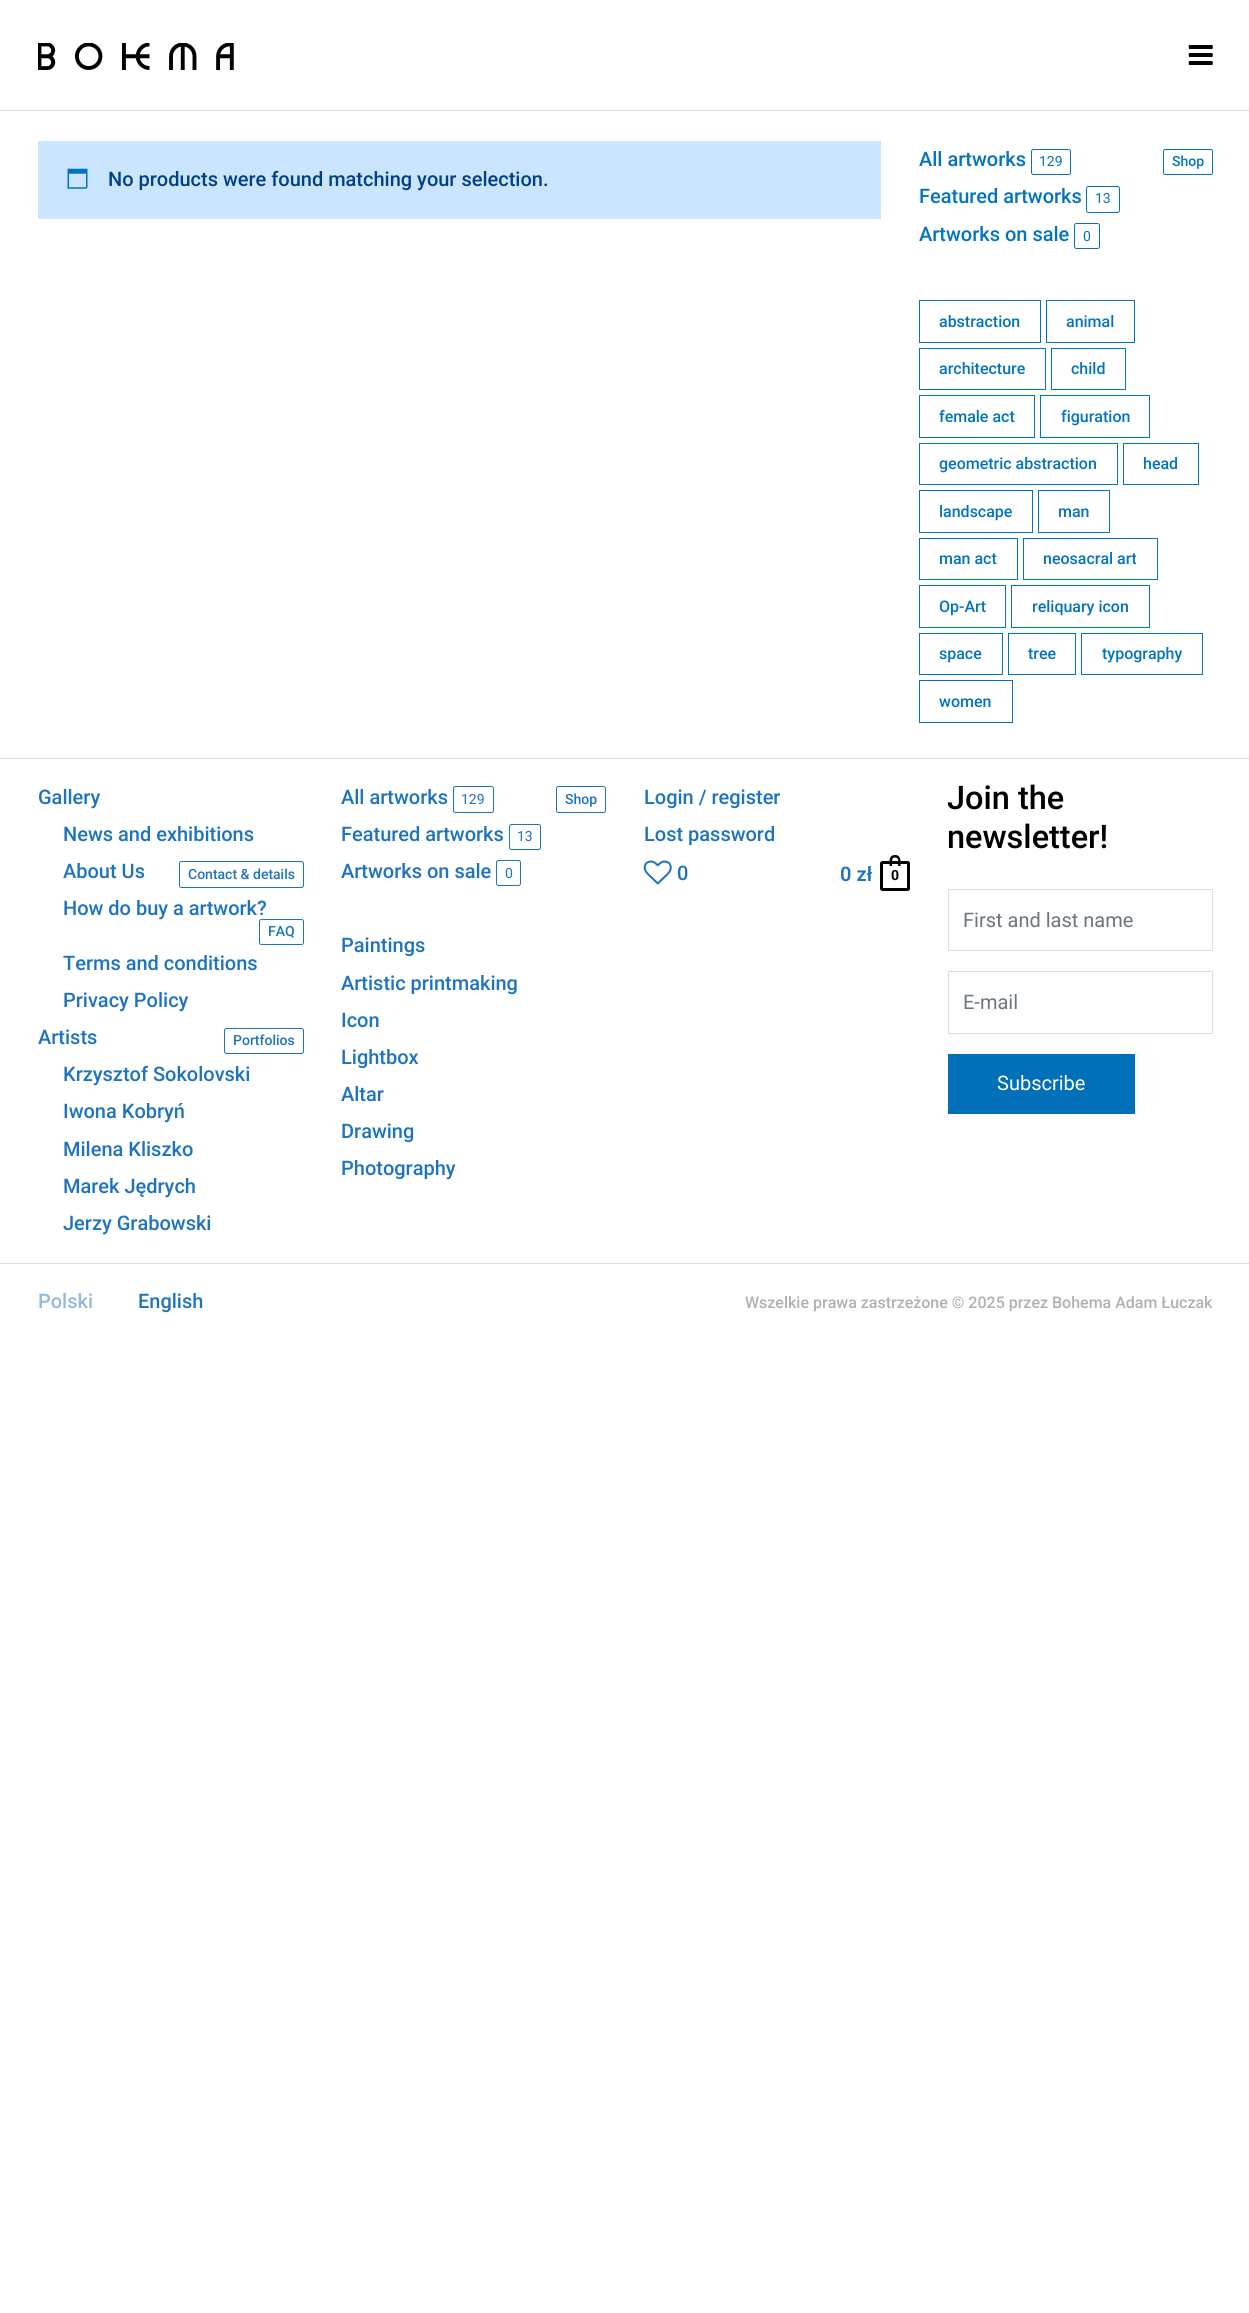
#include <cairo/cairo.h>
#include <math.h>
#include <stddef.h>

static cairo_t *cr;

static void use_color(int r, int g, int b) {
  cairo_set_source_rgb(cr, r / 255.0, g / 255.0, b / 255.0);
}

static void text(double x, double y, const char *s, const char *family, double size, int italic, int bold, int r, int g, int b) {
  cairo_select_font_face(cr, family, italic ? CAIRO_FONT_SLANT_ITALIC : CAIRO_FONT_SLANT_NORMAL,
    bold ? CAIRO_FONT_WEIGHT_BOLD : CAIRO_FONT_WEIGHT_NORMAL);
  cairo_set_font_size(cr, size);
  use_color(r, g, b);
  cairo_move_to(cr, x, y);
  cairo_show_text(cr, s);
}

static void box(double x, double y, double w, double h, int r, int g, int b) {
  use_color(r, g, b);
  cairo_rectangle(cr, x, y, w, h);
  cairo_fill(cr);
}

static void round_rect(double x, double y, double w, double h, double r) {
  cairo_new_sub_path(cr);
  cairo_arc(cr, x + w - r, y + h - r, r, 0, M_PI / 2);
  cairo_arc(cr, x + r, y + h - r, r, M_PI / 2, M_PI);
  cairo_arc(cr, x + r, y + r, r, M_PI, 1.5 * M_PI);
  cairo_arc(cr, x + w - r, y + r, r, 1.5 * M_PI, 2 * M_PI);
  cairo_close_path(cr);
}

static void picture(const char *path, double x, double y, double w, double h) {
  cairo_surface_t *image = cairo_image_surface_create_from_png(path);
  cairo_save(cr);
  cairo_set_source_surface(cr, image, x, y);
  cairo_rectangle(cr, x, y, w, h);
  cairo_fill(cr);
  cairo_restore(cr);
  cairo_surface_destroy(image);
}

static void draw(void) {
  use_color(255, 255, 255);
  cairo_paint(cr);
  box(0, 110, 1249, 1, 221, 221, 221);
  picture("img_01.png", 38, 43, 196, 27);
  picture("img_02.png", 1188, 45, 25, 20);
  box(38, 141, 843, 78, 204, 229, 255);
  picture("img_03.png", 67, 168, 21, 21);
  round_rect(1031.5, 149.5, 39, 25, 2);
  use_color(2, 116, 190);
  cairo_set_line_width(cr, 1);
  cairo_stroke(cr);
  round_rect(1163.5, 149.5, 49, 25, 2);
  cairo_stroke(cr);
  round_rect(1086.5, 186.5, 33, 26, 2);
  cairo_stroke(cr);
  round_rect(1074.5, 223.5, 25, 25, 2);
  cairo_stroke(cr);
  cairo_rectangle(cr, 919.5, 300.5, 121, 42);
  cairo_stroke(cr);
  cairo_rectangle(cr, 1046.5, 300.5, 88, 42);
  cairo_stroke(cr);
  cairo_rectangle(cr, 919.5, 348.5, 126, 41);
  cairo_stroke(cr);
  cairo_rectangle(cr, 1051.5, 348.5, 74, 41);
  cairo_stroke(cr);
  cairo_rectangle(cr, 919.5, 395.5, 115, 42);
  cairo_stroke(cr);
  cairo_rectangle(cr, 1040.5, 395.5, 109, 42);
  cairo_stroke(cr);
  cairo_rectangle(cr, 919.5, 443.5, 198, 41);
  cairo_stroke(cr);
  cairo_rectangle(cr, 1123.5, 443.5, 75, 41);
  cairo_stroke(cr);
  cairo_rectangle(cr, 919.5, 490.5, 113, 42);
  cairo_stroke(cr);
  cairo_rectangle(cr, 1038.5, 490.5, 71, 42);
  cairo_stroke(cr);
  cairo_rectangle(cr, 919.5, 538.5, 98, 41);
  cairo_stroke(cr);
  cairo_rectangle(cr, 1023.5, 538.5, 134, 41);
  cairo_stroke(cr);
  cairo_rectangle(cr, 919.5, 585.5, 86, 42);
  cairo_stroke(cr);
  cairo_rectangle(cr, 1011.5, 585.5, 138, 42);
  cairo_stroke(cr);
  cairo_rectangle(cr, 919.5, 633.5, 83, 41);
  cairo_stroke(cr);
  cairo_rectangle(cr, 1008.5, 633.5, 67, 41);
  cairo_stroke(cr);
  cairo_rectangle(cr, 1081.5, 633.5, 121, 41);
  cairo_stroke(cr);
  cairo_rectangle(cr, 919.5, 680.5, 93, 42);
  cairo_stroke(cr);
  box(0, 758, 1249, 1, 221, 221, 221);
  round_rect(179.5, 861.5, 124, 26, 2);
  use_color(30, 115, 190);
  cairo_stroke(cr);
  round_rect(259.5, 919.5, 44, 25, 2);
  cairo_stroke(cr);
  round_rect(224.5, 1028.5, 79, 25, 2);
  cairo_stroke(cr);
  round_rect(453.5, 786.5, 40, 26, 2);
  cairo_stroke(cr);
  round_rect(556.5, 786.5, 49, 26, 2);
  cairo_stroke(cr);
  round_rect(509.5, 824.5, 31, 25, 2);
  cairo_stroke(cr);
  round_rect(496.5, 860.5, 24, 25, 2);
  cairo_stroke(cr);
  picture("img_04.png", 643, 860, 29, 25);
  round_rect(881.5, 862.5, 27, 27, 1);
  use_color(0, 0, 0);
  cairo_set_line_width(cr, 3);
  cairo_stroke(cr);
  cairo_set_fill_rule(cr, CAIRO_FILL_RULE_EVEN_ODD);
  cairo_new_path(cr);
  cairo_move_to(cr, 895, 855);
  cairo_curve_to(cr, 901.5, 855, 900.5, 862, 900.5, 866);
  cairo_line_to(cr, 889.5, 866);
  cairo_curve_to(cr, 889.5, 862, 888.5, 855, 895, 855);
  cairo_close_path(cr);
  cairo_move_to(cr, 895, 857.5);
  cairo_curve_to(cr, 899.5, 857.5, 898, 863.5, 898, 866);
  cairo_line_to(cr, 892, 866);
  cairo_curve_to(cr, 892, 863.5, 891, 857.5, 895, 857.5);
  cairo_close_path(cr);
  cairo_fill(cr);
  cairo_rectangle(cr, 948.5, 889.5, 264, 61);
  use_color(221, 221, 221);
  cairo_set_line_width(cr, 1);
  cairo_stroke(cr);
  cairo_rectangle(cr, 948.5, 971.5, 264, 62);
  cairo_stroke(cr);
  box(948, 1054, 187, 60, 1, 112, 185);
  box(0, 1263, 1249, 1, 221, 221, 221);
  text(108, 186, "No products were found matching your selection.", "Roboto Medium", 20, 0, 0, 0, 64, 133);
  text(919, 166, "All artworks", "Roboto Medium", 20, 0, 0, 2, 116, 190);
  text(1039, 166, "129", "Roboto", 14, 0, 0, 2, 116, 190);
  text(1172, 166, "Shop", "Roboto Medium", 14, 0, 0, 2, 116, 190);
  text(919, 203, "Featured artworks", "Roboto Medium", 20, 0, 0, 2, 116, 190);
  text(1095, 203, "13", "Roboto", 14, 0, 0, 2, 116, 190);
  text(919, 241, "Artworks on sale", "Roboto Medium", 20, 0, 0, 2, 116, 190);
  text(1083, 241, "0", "Roboto", 14, 0, 0, 2, 116, 190);
  text(939, 327, "abstraction", "Roboto Medium", 16, 0, 0, 2, 116, 190);
  text(1066, 327, "animal", "Roboto Medium", 16, 0, 0, 2, 116, 190);
  text(939, 374, "architecture", "Roboto Medium", 16, 0, 0, 2, 116, 190);
  text(1071, 374, "child", "Roboto Medium", 16, 0, 0, 2, 116, 190);
  text(939, 422, "female act", "Roboto Medium", 16, 0, 0, 2, 116, 190);
  text(1061, 422, "figuration", "Roboto Medium", 16, 0, 0, 2, 116, 190);
  text(939, 469, "geometric abstraction", "Roboto Medium", 16, 0, 0, 2, 116, 190);
  text(1143, 469, "head", "Roboto Medium", 16, 0, 0, 2, 116, 190);
  text(939, 517, "landscape", "Roboto Medium", 16, 0, 0, 2, 116, 190);
  text(1058, 517, "man", "Roboto Medium", 16, 0, 0, 2, 116, 190);
  text(939, 564, "man act", "Roboto Medium", 16, 0, 0, 2, 116, 190);
  text(1043, 564, "neosacral art", "Roboto Medium", 16, 0, 0, 2, 116, 190);
  text(939, 612, "Op-Art", "Roboto Medium", 16, 0, 0, 2, 116, 190);
  text(1032, 612, "reliquary icon", "Roboto Medium", 16, 0, 0, 2, 116, 190);
  text(939, 659, "space", "Roboto Medium", 16, 0, 0, 2, 116, 190);
  text(1028, 659, "tree", "Roboto Medium", 16, 0, 0, 2, 116, 190);
  text(1102, 659, "typography", "Roboto Medium", 16, 0, 0, 2, 116, 190);
  text(939, 707, "women", "Roboto Medium", 16, 0, 0, 2, 116, 190);
  text(38, 804, "Gallery", "Roboto Medium", 20, 0, 0, 30, 115, 190);
  text(63, 841, "News and exhibitions", "Roboto Medium", 20, 0, 0, 30, 115, 190);
  text(63, 878, "About Us", "Roboto Medium", 20, 0, 0, 30, 115, 190);
  text(188, 879, "Contact & details", "Roboto Medium", 14, 0, 0, 30, 115, 190);
  text(63, 915, "How do buy a artwork?", "Roboto Medium", 20, 0, 0, 30, 115, 190);
  text(268, 936, "FAQ", "Roboto Medium", 14, 0, 0, 30, 115, 190);
  text(63, 970, "Terms and conditions", "Roboto Medium", 20, 0, 0, 30, 115, 190);
  text(63, 1007, "Privacy Policy", "Roboto Medium", 20, 0, 0, 30, 115, 190);
  text(38, 1044, "Artists", "Roboto Medium", 20, 0, 0, 30, 115, 190);
  text(233, 1045, "Portfolios", "Roboto Medium", 14, 0, 0, 30, 115, 190);
  text(63, 1081, "Krzysztof Sokolovski", "Roboto Medium", 20, 0, 0, 30, 115, 190);
  text(63, 1118, "Iwona Kobryń", "Roboto Medium", 20, 0, 0, 30, 115, 190);
  text(63, 1156, "Milena Kliszko", "Roboto Medium", 20, 0, 0, 30, 115, 190);
  text(63, 1193, "Marek Jędrych", "Roboto Medium", 20, 0, 0, 30, 115, 190);
  text(63, 1230, "Jerzy Grabowski", "Roboto Medium", 20, 0, 0, 30, 115, 190);
  text(341, 804, "All artworks", "Roboto Medium", 20, 0, 0, 30, 115, 190);
  text(461, 804, "129", "Roboto", 14, 0, 0, 30, 115, 190);
  text(565, 804, "Shop", "Roboto Medium", 14, 0, 0, 30, 115, 190);
  text(341, 841, "Featured artworks", "Roboto Medium", 20, 0, 0, 30, 115, 190);
  text(517, 841, "13", "Roboto", 14, 0, 0, 30, 115, 190);
  text(341, 878, "Artworks on sale", "Roboto Medium", 20, 0, 0, 30, 115, 190);
  text(505, 878, "0", "Roboto", 14, 0, 0, 30, 115, 190);
  text(341, 952, "Paintings", "Roboto Medium", 20, 0, 0, 30, 115, 190);
  text(341, 990, "Artistic printmaking", "Roboto Medium", 20, 0, 0, 30, 115, 190);
  text(341, 1027, "Icon", "Roboto Medium", 20, 0, 0, 30, 115, 190);
  text(341, 1064, "Lightbox", "Roboto Medium", 20, 0, 0, 30, 115, 190);
  text(341, 1101, "Altar", "Roboto Medium", 20, 0, 0, 30, 115, 190);
  text(341, 1138, "Drawing", "Roboto Medium", 20, 0, 0, 30, 115, 190);
  text(341, 1175, "Photography", "Roboto Medium", 20, 0, 0, 30, 115, 190);
  text(644, 804, "Login / register", "Roboto Medium", 20, 0, 0, 30, 115, 190);
  text(644, 841, "Lost password", "Roboto Medium", 20, 0, 0, 30, 115, 190);
  text(677, 880, "0", "Roboto Medium", 20, 0, 0, 30, 115, 190);
  text(840, 881, "0 zł", "Roboto SemiBold", 20, 0, 0, 30, 115, 190);
  text(891, 880, "0", "Roboto", 14, 0, 1, 0, 0, 0);
  text(947, 809, "Join the", "Roboto Medium", 32.5, 0, 0, 0, 0, 0);
  text(947, 848, "newsletter!", "Roboto Medium", 32.5, 0, 0, 0, 0, 0);
  text(963, 927, "First and last name", "Roboto", 20, 0, 0, 108, 117, 125);
  text(963, 1009, "E-mail", "Roboto", 20, 0, 0, 108, 117, 125);
  text(997, 1090, "Subscribe", "Roboto", 20, 0, 0, 255, 255, 255);
  text(38, 1308, "Polski", "Roboto Medium", 20, 0, 0, 143, 185, 223);
  text(138, 1308, "English", "Roboto Medium", 20, 0, 0, 30, 115, 190);
  text(745, 1308, "Wszelkie prawa zastrzeżone © 2025 przez Bohema Adam Łuczak", "Roboto Medium", 16, 0, 0, 176, 176, 176);
}

int main(void) {
  cairo_surface_t *surface = cairo_image_surface_create(CAIRO_FORMAT_RGB24, 1249, 2313);
  cr = cairo_create(surface);
  cairo_font_options_t *options = cairo_font_options_create();
  cairo_font_options_set_hint_metrics(options, CAIRO_HINT_METRICS_OFF);
  cairo_font_options_set_hint_style(options, CAIRO_HINT_STYLE_NONE);
  cairo_set_font_options(cr, options);
  cairo_set_miter_limit(cr, 4);
  draw();
  cairo_surface_write_to_png(surface, "out.png");
  cairo_font_options_destroy(options);
  cairo_destroy(cr);
  cairo_surface_destroy(surface);
  return 0;
}
